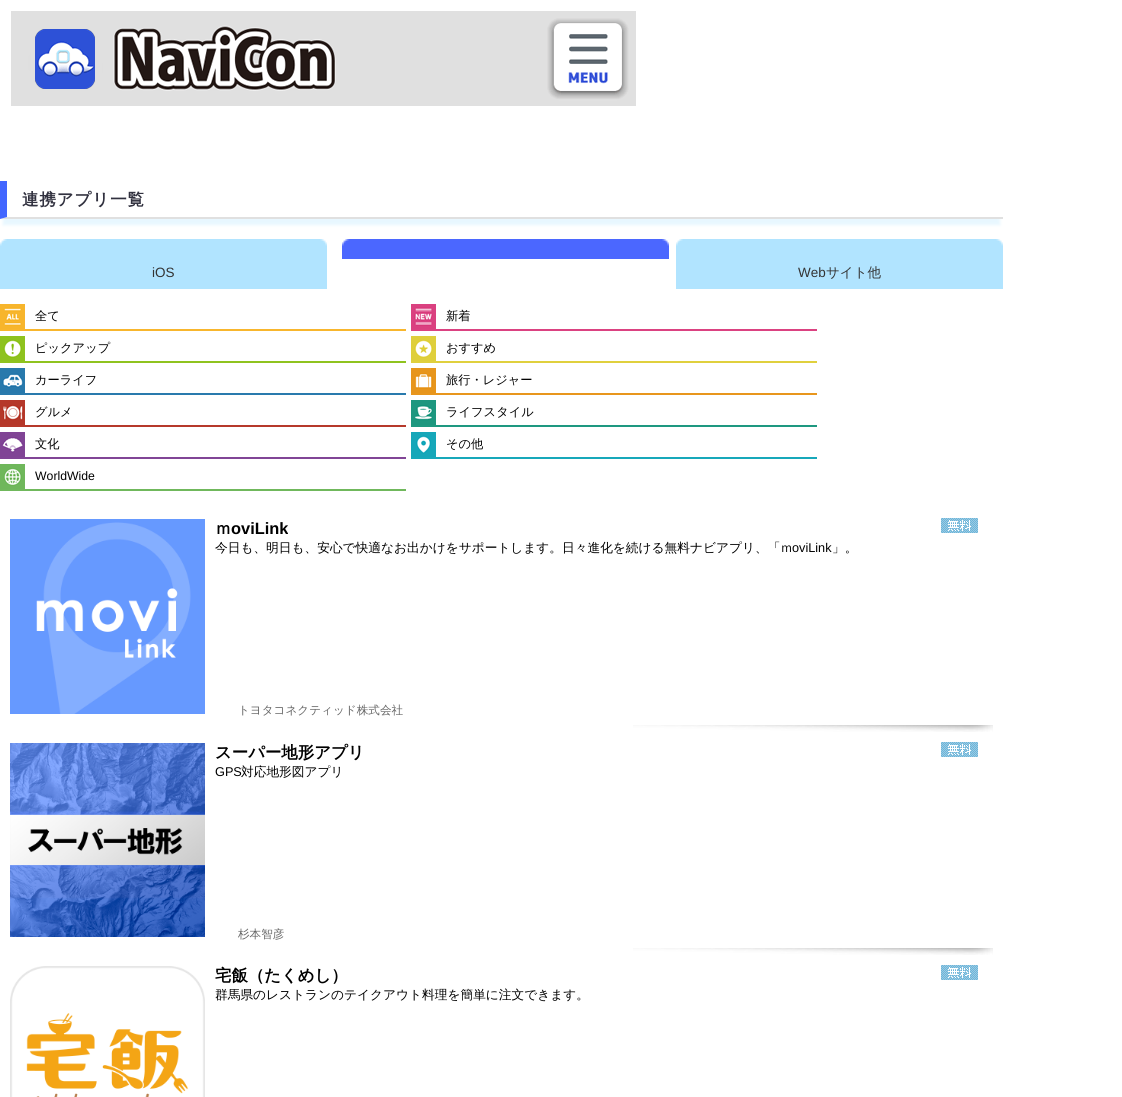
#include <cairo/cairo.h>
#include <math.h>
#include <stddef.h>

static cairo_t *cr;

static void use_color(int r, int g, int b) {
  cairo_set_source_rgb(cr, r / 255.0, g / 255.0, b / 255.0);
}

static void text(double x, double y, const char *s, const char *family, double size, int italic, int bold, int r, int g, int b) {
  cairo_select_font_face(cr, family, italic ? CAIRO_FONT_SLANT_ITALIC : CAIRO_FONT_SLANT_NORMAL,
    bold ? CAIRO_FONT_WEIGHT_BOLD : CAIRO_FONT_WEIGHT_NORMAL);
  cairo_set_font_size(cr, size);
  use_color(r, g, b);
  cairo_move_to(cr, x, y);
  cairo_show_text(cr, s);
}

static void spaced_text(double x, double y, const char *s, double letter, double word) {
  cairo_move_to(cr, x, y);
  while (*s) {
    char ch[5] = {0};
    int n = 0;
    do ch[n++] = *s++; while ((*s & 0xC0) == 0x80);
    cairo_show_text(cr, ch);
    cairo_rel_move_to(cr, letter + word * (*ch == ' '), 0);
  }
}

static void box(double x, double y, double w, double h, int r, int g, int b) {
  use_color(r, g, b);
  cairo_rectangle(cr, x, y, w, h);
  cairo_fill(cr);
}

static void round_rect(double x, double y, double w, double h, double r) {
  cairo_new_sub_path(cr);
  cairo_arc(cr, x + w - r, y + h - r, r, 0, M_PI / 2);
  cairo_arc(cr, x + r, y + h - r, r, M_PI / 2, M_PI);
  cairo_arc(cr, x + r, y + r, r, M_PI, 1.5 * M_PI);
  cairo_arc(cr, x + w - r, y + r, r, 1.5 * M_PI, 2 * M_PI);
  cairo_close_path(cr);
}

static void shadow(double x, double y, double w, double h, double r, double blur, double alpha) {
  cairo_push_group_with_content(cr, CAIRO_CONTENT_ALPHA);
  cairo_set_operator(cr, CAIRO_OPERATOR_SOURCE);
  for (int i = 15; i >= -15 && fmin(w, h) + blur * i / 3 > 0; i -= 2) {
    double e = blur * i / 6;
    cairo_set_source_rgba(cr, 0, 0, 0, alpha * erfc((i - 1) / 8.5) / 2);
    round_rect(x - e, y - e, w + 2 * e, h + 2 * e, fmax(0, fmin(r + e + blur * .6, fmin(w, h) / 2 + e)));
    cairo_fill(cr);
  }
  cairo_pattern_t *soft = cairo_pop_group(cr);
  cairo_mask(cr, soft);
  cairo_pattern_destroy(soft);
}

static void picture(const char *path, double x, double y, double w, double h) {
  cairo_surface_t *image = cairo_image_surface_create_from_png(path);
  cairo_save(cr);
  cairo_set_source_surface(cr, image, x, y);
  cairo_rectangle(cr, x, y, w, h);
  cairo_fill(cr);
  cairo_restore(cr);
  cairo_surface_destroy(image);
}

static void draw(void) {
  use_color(255, 255, 255);
  cairo_paint(cr);
  picture("img_01.png", 11, 11, 625, 95);
  cairo_save(cr);
  cairo_rectangle(cr, 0, 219, 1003, 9);
  cairo_clip(cr);
  use_color(216, 242, 255);
  shadow(3, 193, 997, 32, 0, 1.5, 0.6);
  cairo_restore(cr);
  use_color(224, 224, 224);
  cairo_new_path(cr);
  cairo_move_to(cr, 1003, 219);
  cairo_line_to(cr, 0, 219);
  cairo_line_to(cr, 7, 217);
  cairo_line_to(cr, 1003, 217);
  cairo_close_path(cr);
  cairo_fill(cr);
  use_color(66, 102, 255);
  cairo_new_path(cr);
  cairo_move_to(cr, 0, 219);
  cairo_line_to(cr, 0, 181);
  cairo_line_to(cr, 7, 181);
  cairo_line_to(cr, 7, 217);
  cairo_close_path(cr);
  cairo_fill(cr);
  picture("img_02.png", 342, 239, 327, 20);
  picture("img_03.png", 0, 239, 327, 50);
  picture("img_03.png", 676, 239, 327, 50);
  picture("img_04.png", 0, 304, 25, 25);
  box(0, 329, 406, 2, 248, 182, 45);
  picture("img_05.png", 411, 304, 25, 25);
  box(411, 329, 406, 2, 219, 66, 129);
  picture("img_06.png", 0, 336, 25, 25);
  box(0, 361, 406, 2, 143, 195, 31);
  picture("img_07.png", 411, 336, 25, 25);
  box(411, 361, 406, 2, 224, 208, 61);
  picture("img_08.png", 0, 368, 25, 25);
  box(0, 393, 406, 2, 41, 122, 173);
  picture("img_09.png", 411, 368, 25, 25);
  box(411, 393, 406, 2, 232, 150, 29);
  picture("img_10.png", 0, 400, 25, 25);
  box(0, 425, 406, 2, 182, 57, 43);
  picture("img_11.png", 411, 400, 25, 25);
  box(411, 425, 406, 2, 30, 152, 128);
  picture("img_12.png", 0, 432, 25, 25);
  box(0, 457, 406, 2, 129, 69, 150);
  picture("img_13.png", 411, 432, 25, 25);
  box(411, 457, 406, 2, 23, 168, 186);
  picture("img_14.png", 0, 464, 25, 25);
  box(0, 489, 406, 2, 112, 184, 92);
  picture("img_15.png", 633, 725, 360, 7);
  picture("img_16.png", 10, 519, 195, 195);
  picture("img_17.png", 941, 518, 37, 15);
  picture("img_18.png", 633, 948, 360, 7);
  picture("img_19.png", 10, 743, 195, 194);
  picture("img_17.png", 941, 742, 37, 15);
  picture("img_20.png", 10, 966, 195, 131);
  picture("img_17.png", 941, 965, 37, 15);
  cairo_select_font_face(cr, "WenQuanYi Zen Hei", CAIRO_FONT_SLANT_NORMAL, CAIRO_FONT_WEIGHT_BOLD);
  cairo_set_font_size(cr, 16.4);
  use_color(49, 49, 63);
  spaced_text(22, 205, "連携アプリ一覧", 1, 0);
  text(152, 277, "iOS", "Liberation Sans", 13.5, 0, 0, 51, 51, 51);
  text(798, 277, "Web", "Liberation Sans", 13.5, 0, 0, 51, 51, 51);
  text(826, 277, "サイト他", "WenQuanYi Zen Hei Medium", 13.5, 0, 0, 51, 51, 51);
  text(35, 320, "全て", "WenQuanYi Zen Hei Medium", 12.25, 0, 0, 0, 0, 0);
  text(446, 320, "新着", "WenQuanYi Zen Hei Medium", 12.25, 0, 0, 0, 0, 0);
  text(35, 352, "ピックアップ", "WenQuanYi Zen Hei Medium", 12.25, 0, 0, 0, 0, 0);
  text(446, 352, "おすすめ", "WenQuanYi Zen Hei Medium", 12.25, 0, 0, 0, 0, 0);
  text(35, 384, "カーライフ", "WenQuanYi Zen Hei Medium", 12.25, 0, 0, 0, 0, 0);
  text(446, 384, "旅行・レジャー", "WenQuanYi Zen Hei Medium", 12.25, 0, 0, 0, 0, 0);
  text(35, 416, "グルメ", "WenQuanYi Zen Hei Medium", 12.25, 0, 0, 0, 0, 0);
  text(446, 416, "ライフスタイル", "WenQuanYi Zen Hei Medium", 12.25, 0, 0, 0, 0, 0);
  text(35, 448, "文化", "WenQuanYi Zen Hei Medium", 12.25, 0, 0, 0, 0, 0);
  text(446, 448, "その他", "WenQuanYi Zen Hei Medium", 12.25, 0, 0, 0, 0, 0);
  text(35, 480, "WorldWide", "Liberation Sans", 12.25, 0, 0, 0, 0, 0);
  text(215, 534, "ｍ", "WenQuanYi Zen Hei", 16.4, 0, 1, 0, 0, 0);
  text(231, 534, "oviLink", "Liberation Sans", 16.4, 0, 1, 0, 0, 0);
  box(288, 533, 1, 1, 255, 255, 255);
  text(215, 552, "今日も、明日も、安心で快適なお出かけをサポートします。日々進化を続ける無料ナビアプリ、「ｍ", "WenQuanYi Zen Hei Medium", 12.7, 0, 0, 0, 0, 0);
  text(792, 552, "oviLink", "Liberation Sans", 12.7, 0, 0, 0, 0, 0);
  text(832, 552, "」。", "WenQuanYi Zen Hei Medium", 12.7, 0, 0, 0, 0, 0);
  text(238, 714, "トヨタコネクティッド株式会社", "WenQuanYi Zen Hei Medium", 11.6, 0, 0, 102, 102, 102);
  text(215, 758, "スーパー地形アプリ", "WenQuanYi Zen Hei", 16.4, 0, 1, 0, 0, 0);
  text(215, 776, "GPS", "Liberation Sans", 12.7, 0, 0, 0, 0, 0);
  text(241, 776, "対応地形図アプリ", "WenQuanYi Zen Hei Medium", 12.7, 0, 0, 0, 0, 0);
  text(238, 938, "杉本智彦", "WenQuanYi Zen Hei Medium", 11.6, 0, 0, 102, 102, 102);
  text(215, 981, "宅飯（たくめし）", "WenQuanYi Zen Hei", 16.4, 0, 1, 0, 0, 0);
  text(215, 999, "群馬県のレストランのテイクアウト料理を簡単に注文できます。", "WenQuanYi Zen Hei Medium", 12.7, 0, 0, 0, 0, 0);
}

int main(void) {
  cairo_surface_t *surface = cairo_image_surface_create(CAIRO_FORMAT_RGB24, 1122, 1097);
  cr = cairo_create(surface);
  cairo_font_options_t *options = cairo_font_options_create();
  cairo_font_options_set_hint_metrics(options, CAIRO_HINT_METRICS_OFF);
  cairo_font_options_set_hint_style(options, CAIRO_HINT_STYLE_NONE);
  cairo_set_font_options(cr, options);
  cairo_set_miter_limit(cr, 4);
  draw();
  cairo_surface_write_to_png(surface, "out.png");
  cairo_font_options_destroy(options);
  cairo_destroy(cr);
  cairo_surface_destroy(surface);
  return 0;
}
